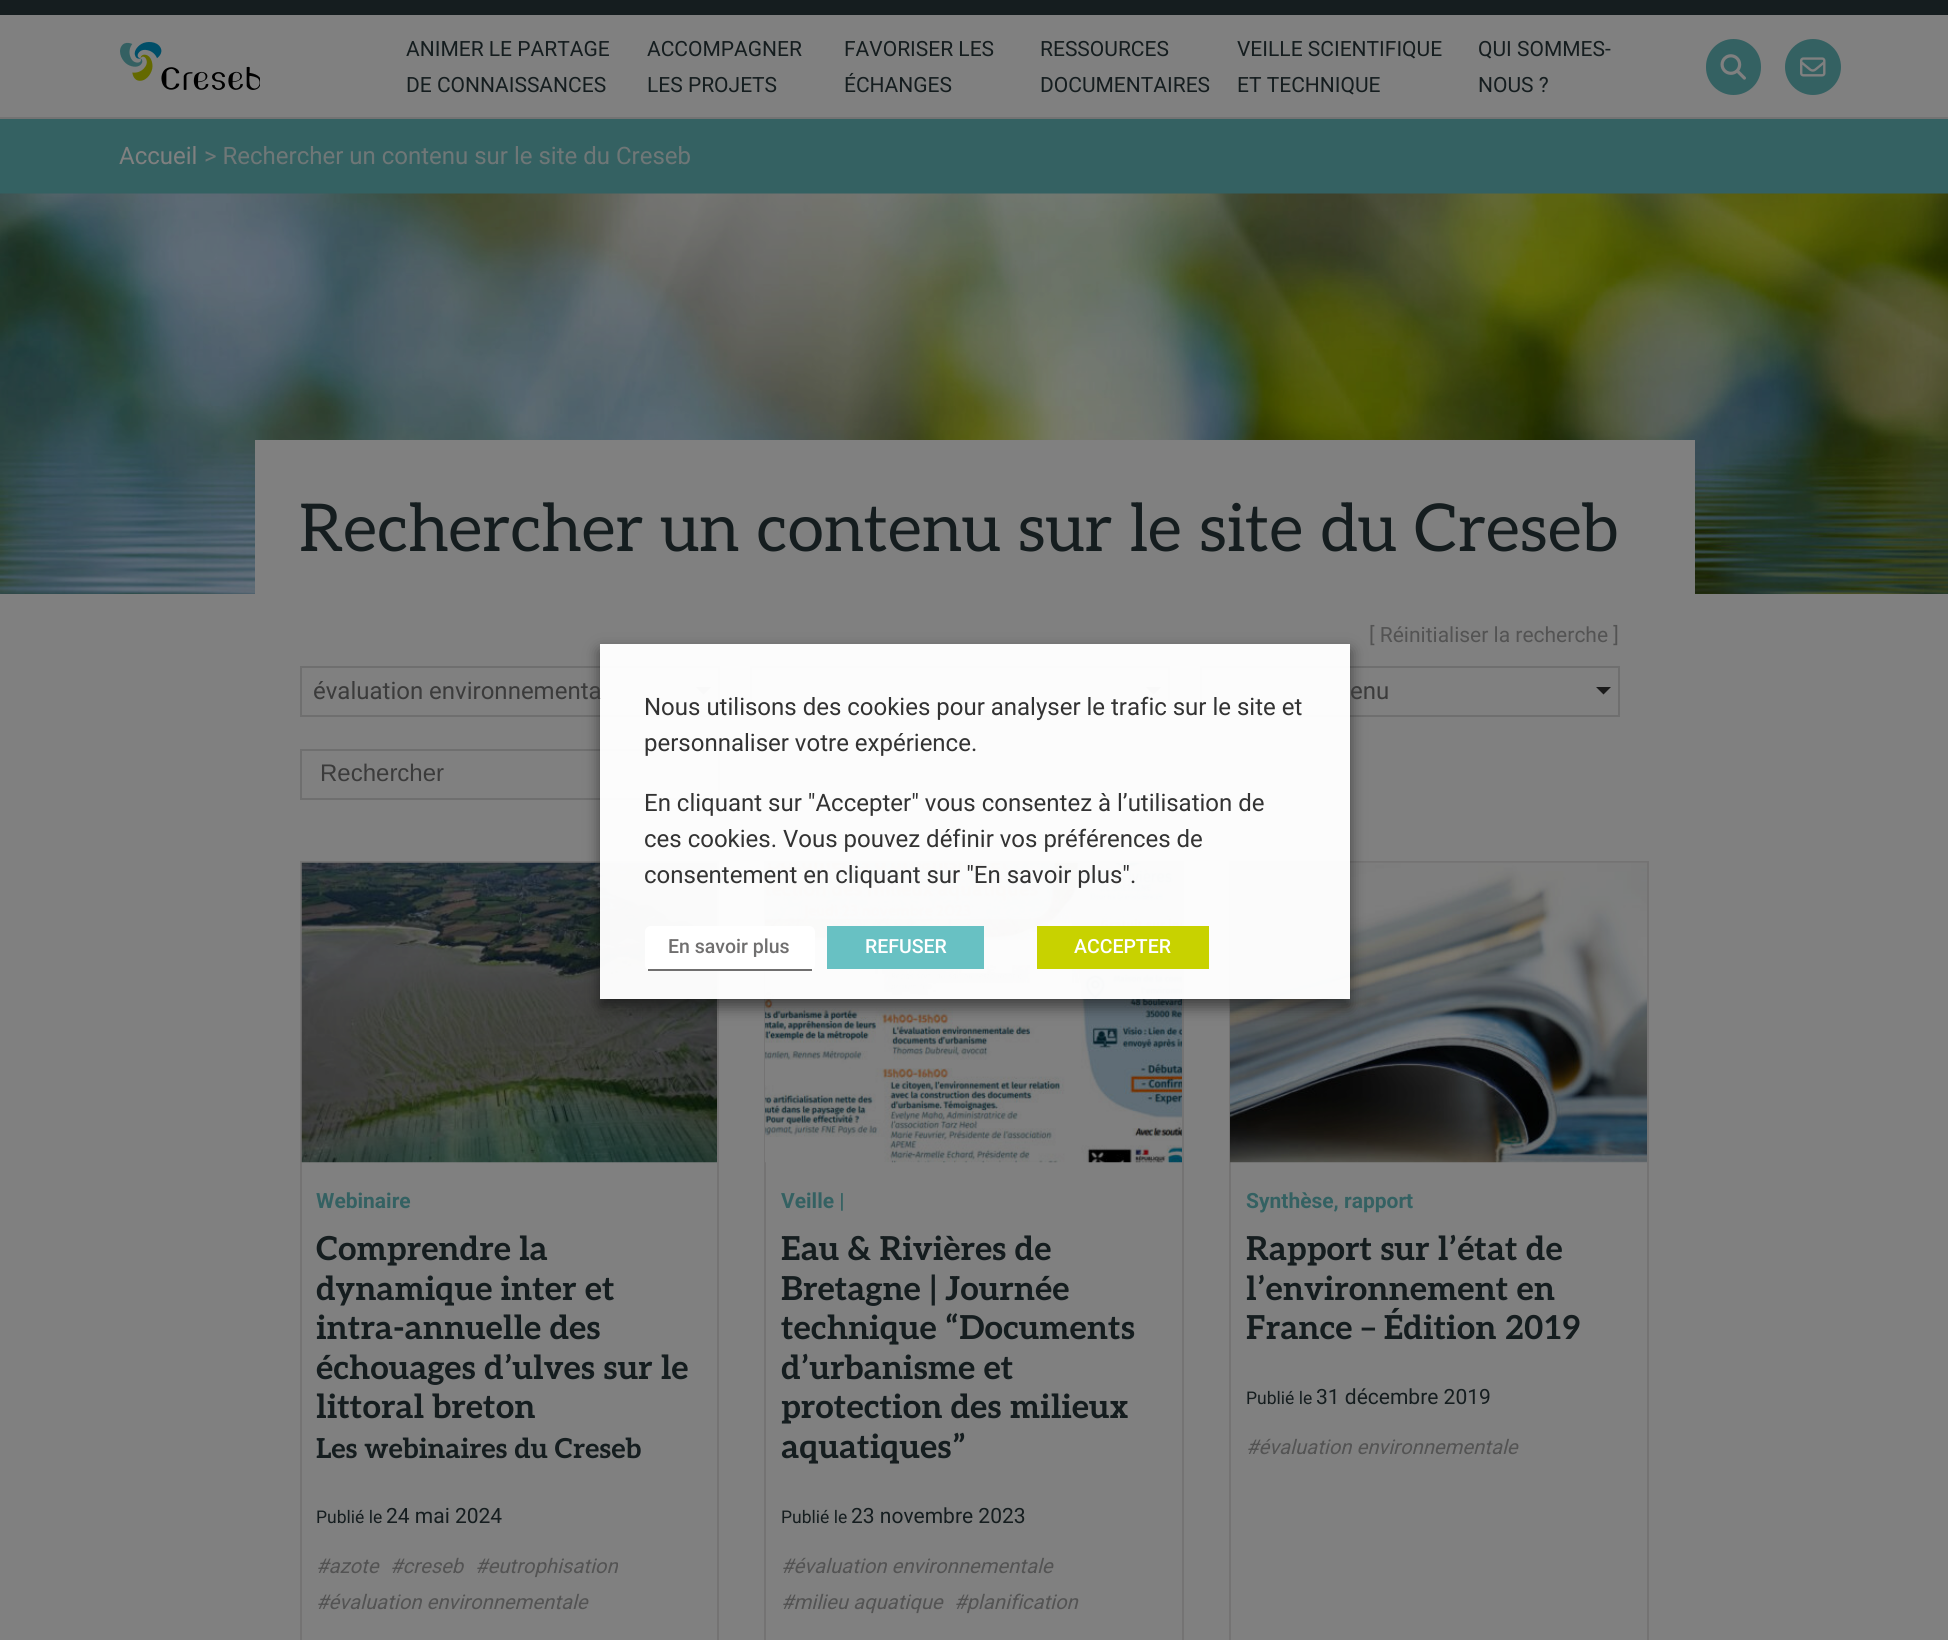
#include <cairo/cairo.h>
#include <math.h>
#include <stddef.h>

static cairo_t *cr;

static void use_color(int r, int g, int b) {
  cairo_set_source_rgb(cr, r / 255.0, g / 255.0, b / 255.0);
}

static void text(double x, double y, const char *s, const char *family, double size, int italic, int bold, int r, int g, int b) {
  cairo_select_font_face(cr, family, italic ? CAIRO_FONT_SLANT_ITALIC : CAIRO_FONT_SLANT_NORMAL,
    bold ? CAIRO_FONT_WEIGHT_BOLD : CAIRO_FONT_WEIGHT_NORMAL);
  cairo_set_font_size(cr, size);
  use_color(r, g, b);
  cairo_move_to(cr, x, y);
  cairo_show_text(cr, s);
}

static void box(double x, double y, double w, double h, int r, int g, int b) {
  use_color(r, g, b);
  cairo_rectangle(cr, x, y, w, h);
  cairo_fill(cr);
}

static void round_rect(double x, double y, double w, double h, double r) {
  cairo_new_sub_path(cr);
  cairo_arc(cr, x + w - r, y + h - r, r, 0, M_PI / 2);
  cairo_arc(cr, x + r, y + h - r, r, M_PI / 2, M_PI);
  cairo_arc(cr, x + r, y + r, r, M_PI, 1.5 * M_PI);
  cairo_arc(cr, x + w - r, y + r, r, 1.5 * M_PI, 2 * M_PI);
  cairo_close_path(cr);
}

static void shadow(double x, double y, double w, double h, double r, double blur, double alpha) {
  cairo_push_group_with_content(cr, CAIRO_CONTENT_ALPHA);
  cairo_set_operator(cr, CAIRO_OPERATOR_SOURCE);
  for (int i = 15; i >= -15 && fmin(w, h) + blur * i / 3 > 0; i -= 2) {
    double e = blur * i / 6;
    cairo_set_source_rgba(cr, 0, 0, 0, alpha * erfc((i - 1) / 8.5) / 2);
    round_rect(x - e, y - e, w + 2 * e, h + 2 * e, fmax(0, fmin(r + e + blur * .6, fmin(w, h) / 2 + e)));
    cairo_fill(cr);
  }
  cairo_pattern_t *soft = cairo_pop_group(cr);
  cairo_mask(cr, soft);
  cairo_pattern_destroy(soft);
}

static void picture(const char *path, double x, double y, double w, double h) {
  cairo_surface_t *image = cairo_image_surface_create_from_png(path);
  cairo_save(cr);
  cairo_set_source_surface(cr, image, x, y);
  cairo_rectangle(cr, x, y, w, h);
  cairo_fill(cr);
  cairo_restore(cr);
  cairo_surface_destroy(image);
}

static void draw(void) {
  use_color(128, 128, 128);
  cairo_paint(cr);
  box(0, 0, 1948, 15, 21, 29, 31);
  box(0, 117, 1948, 2, 115, 115, 115);
  picture("img_01.png", 120, 42, 140, 48);
  use_color(52, 97, 98);
  round_rect(1706, 39, 55, 56, 27.5);
  cairo_fill(cr);
  picture("img_02.png", 1720, 54, 26, 26);
  cairo_arc(cr, 1813, 67, 28, 0, 2 * M_PI);
  cairo_fill(cr);
  picture("img_03.png", 1800, 57, 26, 20);
  box(0, 119, 1948, 75, 52, 97, 98);
  picture("img_04.png", 0, 193, 1948, 401);
  box(255, 440, 1440, 154, 128, 128, 128);
  cairo_rectangle(cr, 301, 667, 418, 49);
  use_color(111, 111, 111);
  cairo_stroke(cr);
  use_color(26, 26, 26);
  cairo_new_path(cr);
  cairo_move_to(cr, 696, 687);
  cairo_line_to(cr, 711, 687);
  cairo_line_to(cr, 703.5, 694.5);
  cairo_close_path(cr);
  cairo_fill(cr);
  cairo_rectangle(cr, 751, 667, 418, 49);
  use_color(111, 111, 111);
  cairo_stroke(cr);
  use_color(26, 26, 26);
  cairo_new_path(cr);
  cairo_move_to(cr, 1146, 687);
  cairo_line_to(cr, 1161, 687);
  cairo_line_to(cr, 1153.5, 694.5);
  cairo_close_path(cr);
  cairo_fill(cr);
  cairo_rectangle(cr, 1201, 667, 418, 49);
  use_color(111, 111, 111);
  cairo_stroke(cr);
  use_color(26, 26, 26);
  cairo_new_path(cr);
  cairo_move_to(cr, 1596, 687);
  cairo_line_to(cr, 1611, 687);
  cairo_line_to(cr, 1603.5, 694.5);
  cairo_close_path(cr);
  cairo_fill(cr);
  cairo_rectangle(cr, 301, 750, 418, 49);
  use_color(111, 111, 111);
  cairo_stroke(cr);
  cairo_rectangle(cr, 301, 862, 417, 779);
  use_color(116, 115, 115);
  cairo_stroke(cr);
  picture("img_05.png", 301, 862, 416, 301);
  cairo_rectangle(cr, 765, 862, 418, 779);
  cairo_stroke(cr);
  picture("img_06.png", 765, 862, 417, 301);
  cairo_rectangle(cr, 1230, 862, 418, 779);
  cairo_stroke(cr);
  picture("img_07.png", 1230, 862, 417, 301);
  cairo_save(cr);
  cairo_set_fill_rule(cr, CAIRO_FILL_RULE_EVEN_ODD);
  cairo_new_path(cr);
  cairo_move_to(cr, 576, 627);
  cairo_line_to(cr, 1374, 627);
  cairo_line_to(cr, 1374, 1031);
  cairo_line_to(cr, 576, 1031);
  cairo_close_path(cr);
  cairo_move_to(cr, 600, 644);
  cairo_line_to(cr, 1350, 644);
  cairo_line_to(cr, 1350, 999);
  cairo_line_to(cr, 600, 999);
  cairo_close_path(cr);
  cairo_clip(cr);
  use_color(0, 0, 0);
  shadow(600, 651, 750, 356, 0, 7.5, 0.5);
  cairo_restore(cr);
  cairo_set_source_rgba(cr, 1, 1, 1, 0.97);
  cairo_rectangle(cr, 600, 644, 750, 355);
  cairo_fill(cr);
  use_color(255, 255, 255);
  round_rect(645, 926, 170, 45, 6);
  cairo_fill(cr);
  box(648, 969, 164, 2, 112, 111, 111);
  box(827, 926, 157, 43, 104, 193, 195);
  box(1037, 926, 172, 43, 200, 210, 0);
  text(406, 56, "ANIMER LE PARTAGE", "Roboto", 21, 0, 0, 21, 29, 31);
  text(406, 92, "DE CONNAISSANCES", "Roboto", 21, 0, 0, 21, 29, 31);
  text(647, 56, "ACCOMPAGNER", "Roboto", 21, 0, 0, 21, 29, 31);
  text(647, 92, "LES PROJETS", "Roboto", 21, 0, 0, 21, 29, 31);
  text(844, 56, "FAVORISER LES", "Roboto", 21, 0, 0, 21, 29, 31);
  text(844, 92, "ÉCHANGES", "Roboto", 21, 0, 0, 21, 29, 31);
  text(1040, 56, "RESSOURCES", "Roboto", 21, 0, 0, 21, 29, 31);
  text(1040, 92, "DOCUMENTAIRES", "Roboto", 21, 0, 0, 21, 29, 31);
  text(1237, 56, "VEILLE SCIENTIFIQUE", "Roboto", 21, 0, 0, 21, 29, 31);
  text(1237, 92, "ET TECHNIQUE", "Roboto", 21, 0, 0, 21, 29, 31);
  text(1478, 56, "QUI SOMMES-", "Roboto", 21, 0, 0, 21, 29, 31);
  text(1478, 92, "NOUS ?", "Roboto", 21, 0, 0, 21, 29, 31);
  text(119, 164, "Accueil", "Roboto", 24, 0, 0, 128, 128, 128);
  text(204, 164, "> Rechercher un contenu sur le site du Creseb", "Roboto", 24, 0, 0, 111, 119, 119);
  text(299, 551, "Rechercher un contenu sur le site du Creseb", "Aleo", 66, 0, 0, 21, 29, 31);
  text(1369, 642, "[ Réinitialiser la recherche ]", "Roboto", 21, 0, 0, 83, 83, 83);
  text(313, 699, "évaluation environnementa", "Roboto", 24, 0, 0, 59, 59, 59);
  text(1350, 699, "enu", "Roboto", 24, 0, 0, 59, 59, 59);
  text(320, 781, "Rechercher", "Liberation Sans", 24, 0, 0, 59, 59, 59);
  text(316, 1208, "Webinaire", "Roboto", 21, 0, 1, 52, 97, 98);
  text(316, 1260, "Comprendre la", "Aleo", 33, 0, 1, 21, 29, 31);
  text(316, 1300, "dynamique inter et", "Aleo", 33, 0, 1, 21, 29, 31);
  text(316, 1339, "intra-annuelle des", "Aleo", 33, 0, 1, 21, 29, 31);
  text(316, 1379, "échouages d’ulves sur le", "Aleo", 33, 0, 1, 21, 29, 31);
  text(316, 1418, "littoral breton", "Aleo", 33, 0, 1, 21, 29, 31);
  text(316, 1458, "Les webinaires du Creseb", "Aleo", 27.5, 0, 1, 21, 29, 31);
  text(316, 1523, "Publié le", "Roboto", 17.5, 0, 0, 21, 29, 31);
  text(386, 1523, "24 mai 2024", "Roboto", 21, 0, 0, 21, 29, 31);
  text(316, 1573, "#azote", "Roboto", 20.25, 1, 0, 83, 83, 83);
  text(390, 1573, "#creseb", "Roboto", 20.25, 1, 0, 83, 83, 83);
  text(475, 1573, "#eutrophisation", "Roboto", 20.25, 1, 0, 83, 83, 83);
  text(316, 1609, "#évaluation environnementale", "Roboto", 20.25, 1, 0, 83, 83, 83);
  text(781, 1208, "Veille |", "Roboto", 21, 0, 1, 52, 97, 98);
  text(781, 1260, "Eau & Rivières de", "Aleo", 33, 0, 1, 21, 29, 31);
  text(781, 1300, "Bretagne | Journée", "Aleo", 33, 0, 1, 21, 29, 31);
  text(781, 1339, "technique “Documents", "Aleo", 33, 0, 1, 21, 29, 31);
  text(781, 1379, "d’urbanisme et", "Aleo", 33, 0, 1, 21, 29, 31);
  text(781, 1418, "protection des milieux", "Aleo", 33, 0, 1, 21, 29, 31);
  text(781, 1458, "aquatiques”", "Aleo", 33, 0, 1, 21, 29, 31);
  text(781, 1523, "Publié le", "Roboto", 17.5, 0, 0, 21, 29, 31);
  text(851, 1523, "23 novembre 2023", "Roboto", 21, 0, 0, 21, 29, 31);
  text(781, 1573, "#évaluation environnementale", "Roboto", 20.25, 1, 0, 83, 83, 83);
  text(781, 1609, "#milieu aquatique", "Roboto", 20.25, 1, 0, 83, 83, 83);
  text(954, 1609, "#planification", "Roboto", 20.25, 1, 0, 83, 83, 83);
  text(1246, 1208, "Synthèse, rapport", "Roboto", 21, 0, 1, 52, 97, 98);
  text(1246, 1260, "Rapport sur l’état de", "Aleo", 33, 0, 1, 21, 29, 31);
  text(1246, 1300, "l’environnement en", "Aleo", 33, 0, 1, 21, 29, 31);
  text(1246, 1339, "France – Édition 2019", "Aleo", 33, 0, 1, 21, 29, 31);
  text(1246, 1404, "Publié le", "Roboto", 17.5, 0, 0, 21, 29, 31);
  text(1316, 1404, "31 décembre 2019", "Roboto", 21, 0, 0, 21, 29, 31);
  text(1246, 1454, "#évaluation environnementale", "Roboto", 20.25, 1, 0, 83, 83, 83);
  text(644, 715, "Nous utilisons des cookies pour analyser le trafic sur le site et", "Roboto", 24, 0, 0, 51, 51, 51);
  text(644, 751, "personnaliser votre expérience.", "Roboto", 24, 0, 0, 51, 51, 51);
  text(644, 811, "En cliquant sur \"Accepter\" vous consentez à l’utilisation de", "Roboto", 24, 0, 0, 51, 51, 51);
  text(644, 847, "ces cookies. Vous pouvez définir vos préférences de", "Roboto", 24, 0, 0, 51, 51, 51);
  text(644, 883, "consentement en cliquant sur \"En savoir plus\".", "Roboto", 24, 0, 0, 51, 51, 51);
  text(668, 953, "En savoir plus", "Roboto Medium", 19.5, 0, 0, 112, 111, 111);
  text(865, 953, "REFUSER", "Roboto Medium", 19.5, 0, 0, 255, 255, 255);
  text(1074, 953, "ACCEPTER", "Roboto Medium", 19.5, 0, 0, 255, 255, 255);
}

int main(void) {
  cairo_surface_t *surface = cairo_image_surface_create(CAIRO_FORMAT_RGB24, 1948, 1640);
  cr = cairo_create(surface);
  cairo_font_options_t *options = cairo_font_options_create();
  cairo_font_options_set_hint_metrics(options, CAIRO_HINT_METRICS_OFF);
  cairo_font_options_set_hint_style(options, CAIRO_HINT_STYLE_NONE);
  cairo_set_font_options(cr, options);
  cairo_set_miter_limit(cr, 4);
  draw();
  cairo_surface_write_to_png(surface, "out.png");
  cairo_font_options_destroy(options);
  cairo_destroy(cr);
  cairo_surface_destroy(surface);
  return 0;
}
